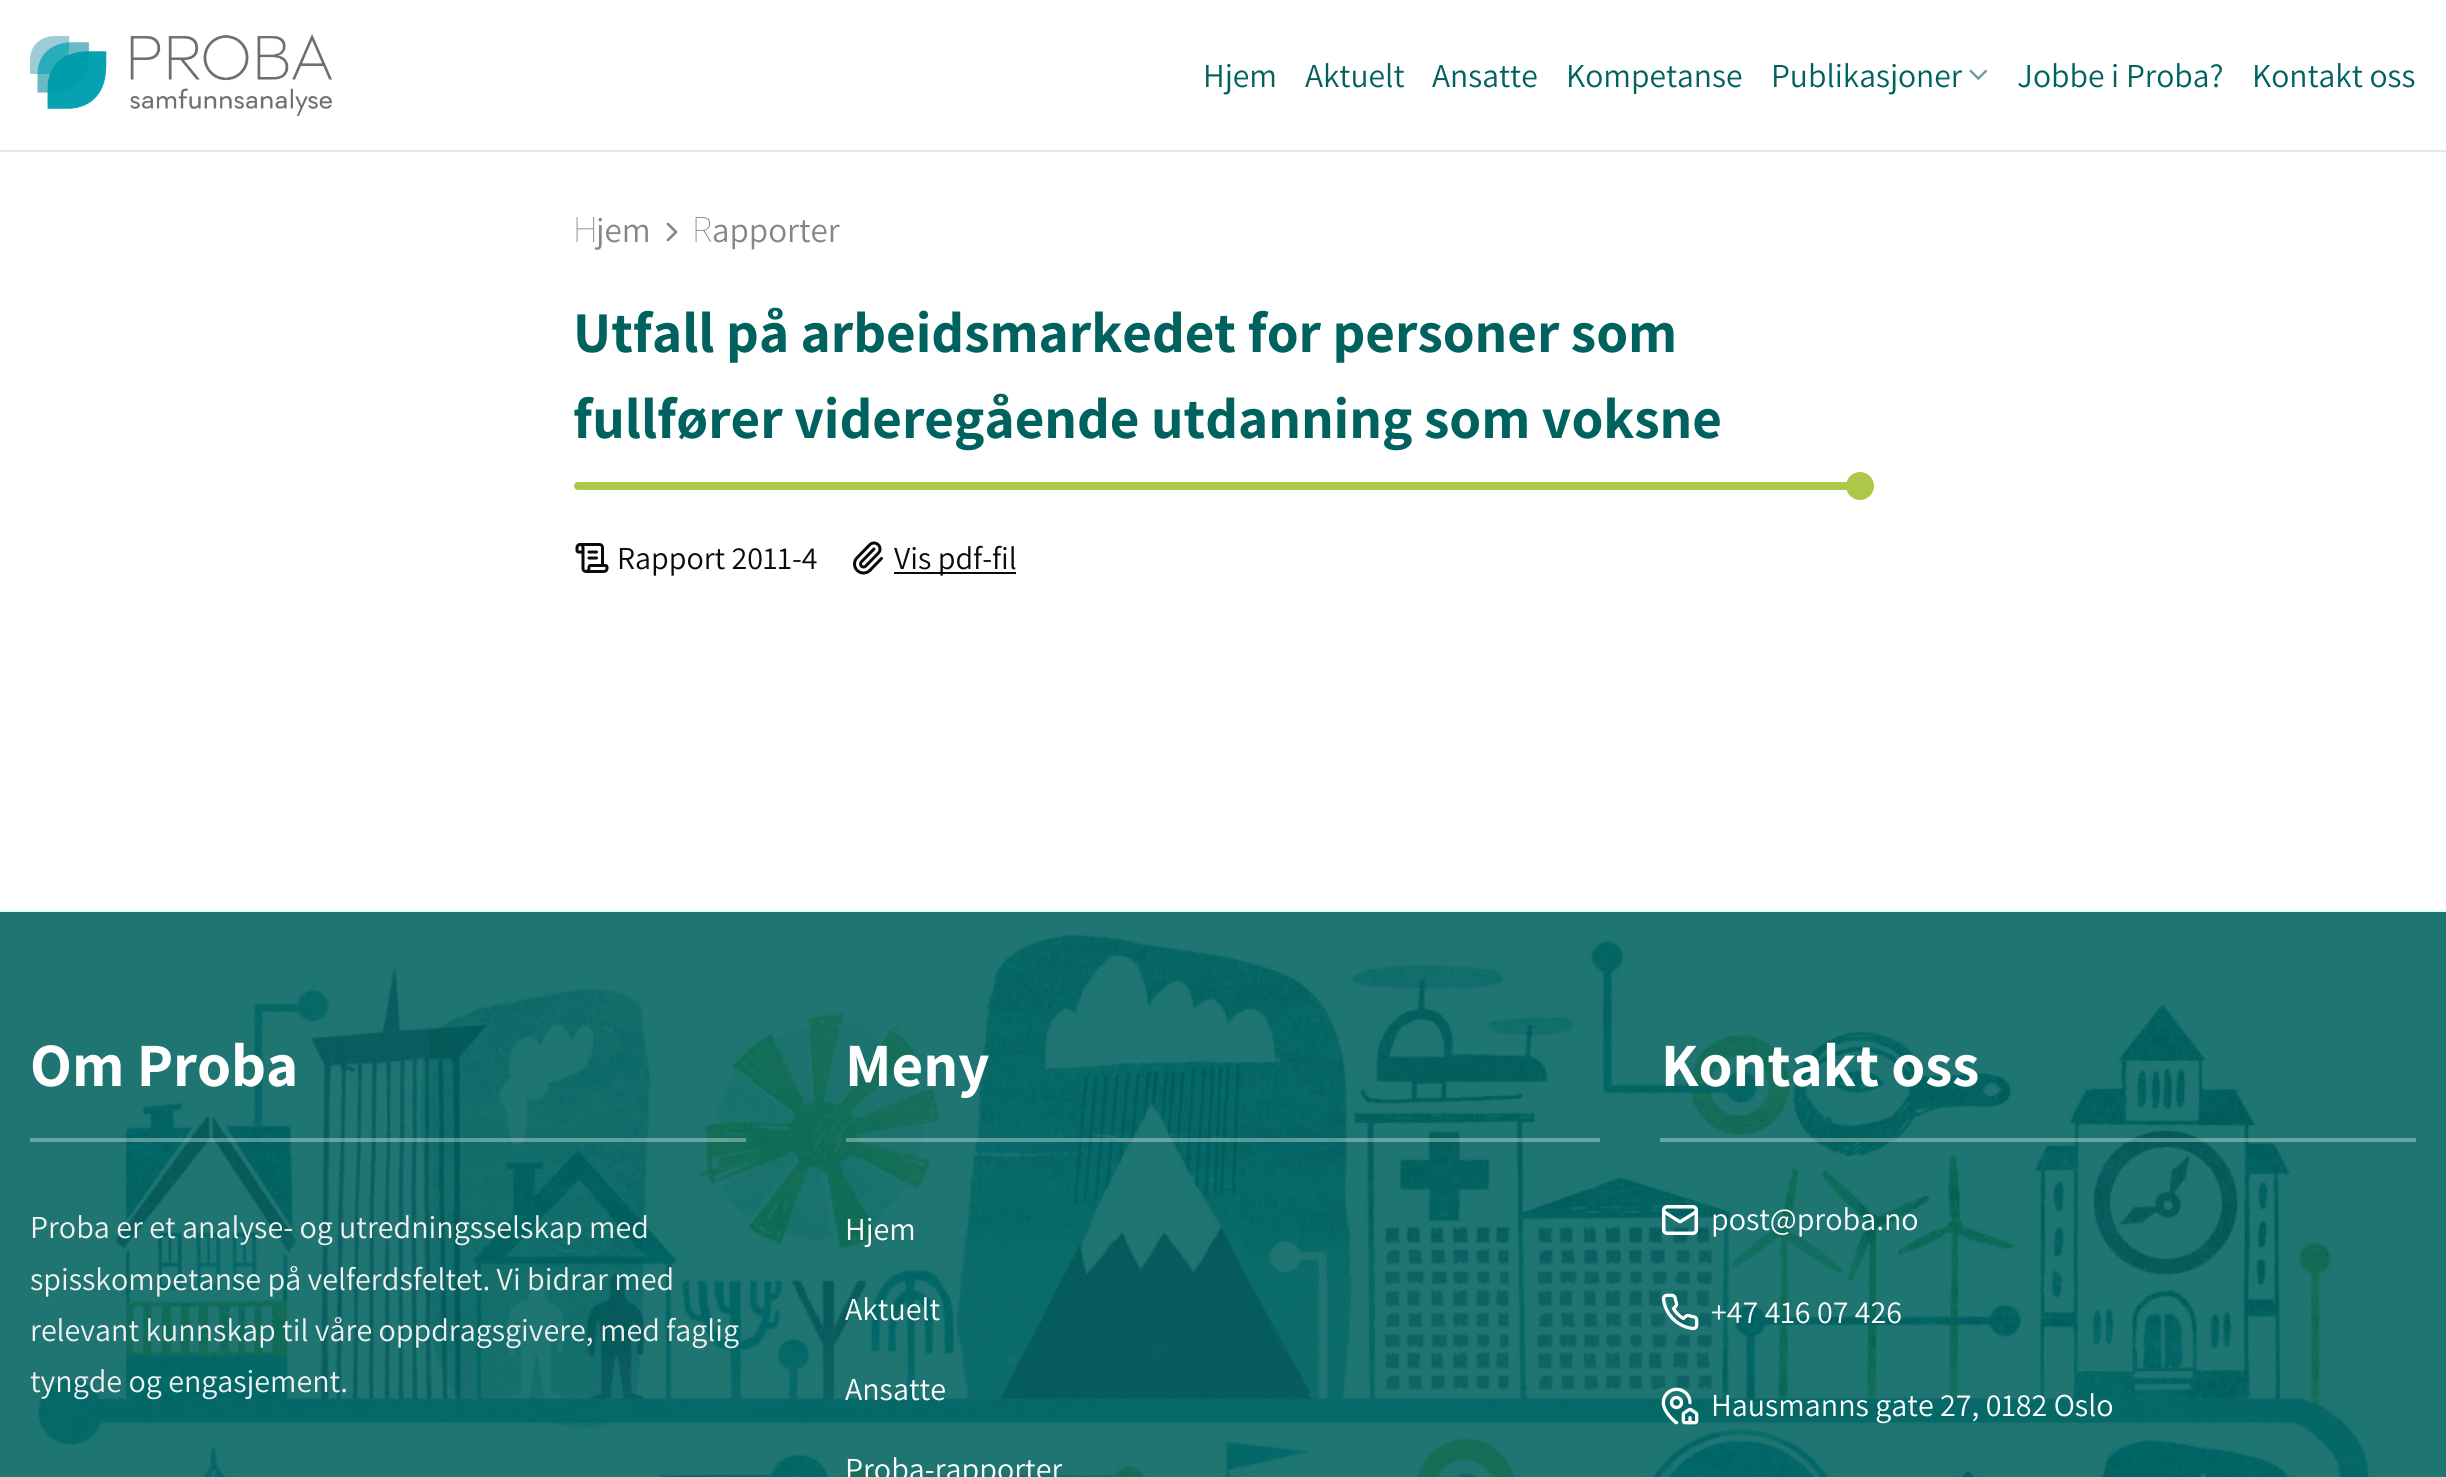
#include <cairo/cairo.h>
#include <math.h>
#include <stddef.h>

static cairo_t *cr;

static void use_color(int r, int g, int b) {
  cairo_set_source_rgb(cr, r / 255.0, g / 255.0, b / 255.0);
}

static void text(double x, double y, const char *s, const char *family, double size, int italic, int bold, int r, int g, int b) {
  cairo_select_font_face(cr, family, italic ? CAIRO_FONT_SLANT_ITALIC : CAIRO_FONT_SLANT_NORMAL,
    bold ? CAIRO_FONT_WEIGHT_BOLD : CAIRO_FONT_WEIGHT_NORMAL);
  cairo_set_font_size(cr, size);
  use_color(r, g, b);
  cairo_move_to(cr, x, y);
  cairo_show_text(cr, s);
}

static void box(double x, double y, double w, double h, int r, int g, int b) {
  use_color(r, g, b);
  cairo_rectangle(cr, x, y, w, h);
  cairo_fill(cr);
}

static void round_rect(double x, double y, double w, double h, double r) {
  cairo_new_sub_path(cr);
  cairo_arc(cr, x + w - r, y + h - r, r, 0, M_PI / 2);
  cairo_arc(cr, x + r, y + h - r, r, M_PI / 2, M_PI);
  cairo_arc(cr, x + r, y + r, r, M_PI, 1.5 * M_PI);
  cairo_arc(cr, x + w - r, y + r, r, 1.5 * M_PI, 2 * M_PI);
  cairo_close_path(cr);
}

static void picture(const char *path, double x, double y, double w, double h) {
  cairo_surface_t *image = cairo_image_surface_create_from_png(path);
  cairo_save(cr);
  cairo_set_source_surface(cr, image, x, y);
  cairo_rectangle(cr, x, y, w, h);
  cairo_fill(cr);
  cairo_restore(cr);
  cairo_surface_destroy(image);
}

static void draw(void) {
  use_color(255, 255, 255);
  cairo_paint(cr);
  box(0, 912, 2446, 565, 31, 117, 114);
  box(0, 150, 2446, 2, 230, 230, 230);
  picture("img_01.png", 30, 34, 302, 82);
  picture("img_02.png", 1969, 69, 19, 11);
  cairo_new_path(cr);
  cairo_move_to(cr, 668, 240);
  cairo_line_to(cr, 676, 232);
  cairo_line_to(cr, 668, 224);
  use_color(134, 134, 134);
  cairo_set_line_width(cr, 2.7);
  cairo_set_line_cap(cr, CAIRO_LINE_CAP_ROUND);
  cairo_set_line_join(cr, CAIRO_LINE_JOIN_ROUND);
  cairo_stroke(cr);
  use_color(172, 199, 73);
  round_rect(574, 482, 1300, 8, 4);
  cairo_fill(cr);
  cairo_arc(cr, 1860, 486, 14, 0, 2 * M_PI);
  cairo_fill(cr);
  picture("img_03.png", 575, 543, 34, 30);
  picture("img_04.png", 853, 541, 30, 34);
  box(894, 572, 122, 2, 10, 10, 10);
  box(0, 910, 2446, 2, 225, 250, 255);
  picture("img_05.png", 34, 931, 2340, 546);
  cairo_set_source_rgba(cr, 1, 1, 1, 0.34);
  cairo_rectangle(cr, 30, 1138, 716, 4);
  cairo_fill(cr);
  cairo_rectangle(cr, 846, 1138, 754, 4);
  cairo_fill(cr);
  cairo_rectangle(cr, 1660, 1138, 756, 4);
  cairo_fill(cr);
  round_rect(1663.75, 1206.75, 32.5, 26.5, 3.25);
  use_color(255, 255, 255);
  cairo_set_line_width(cr, 3.5);
  cairo_set_line_cap(cr, CAIRO_LINE_CAP_BUTT);
  cairo_set_line_join(cr, CAIRO_LINE_JOIN_MITER);
  cairo_stroke(cr);
  cairo_new_path(cr);
  cairo_move_to(cr, 1696.5, 1211.5);
  cairo_line_to(cr, 1681.5, 1221);
  cairo_curve_to(cr, 1680.5, 1222, 1679.5, 1222, 1678.5, 1221);
  cairo_line_to(cr, 1663.5, 1211.5);
  cairo_set_line_width(cr, 3.3);
  cairo_set_line_cap(cr, CAIRO_LINE_CAP_ROUND);
  cairo_set_line_join(cr, CAIRO_LINE_JOIN_ROUND);
  cairo_stroke(cr);
  picture("img_06.png", 1661, 1293, 38, 38);
  picture("img_07.png", 1661, 1387, 38, 38);
  text(1203, 87, "Hjem", "Assistant", 33.5, 0, 0, 0, 98, 95);
  text(1305, 87, "Aktuelt", "Assistant", 33.5, 0, 0, 0, 98, 95);
  text(1432, 87, "Ansatte", "Assistant", 33.5, 0, 0, 0, 98, 95);
  text(1566, 87, "Kompetanse", "Assistant", 33.5, 0, 0, 0, 98, 95);
  text(1771, 87, "Publikasjoner", "Assistant", 33.5, 0, 0, 0, 98, 95);
  text(2017, 87, "Jobbe i Proba?", "Assistant", 33.5, 0, 0, 0, 98, 95);
  text(2252, 87, "Kontakt oss", "Assistant", 33.5, 0, 0, 0, 98, 95);
  text(573, 242, "H", "Noto Sans Thin", 35, 0, 0, 134, 134, 134);
  text(596, 242, "jem", "Assistant", 35, 0, 0, 134, 134, 134);
  text(692, 242, "R", "Noto Sans Thin", 35, 0, 0, 134, 134, 134);
  text(712, 242, "apporter", "Assistant", 35, 0, 0, 134, 134, 134);
  text(573, 352, "Utfall på arbeidsmarkedet for personer som", "Assistant", 57.6, 0, 1, 0, 98, 95);
  text(573, 438, "fullfører videregående utdanning som voksne", "Assistant", 57.6, 0, 1, 0, 98, 95);
  text(617, 569, "Rapport 2011-4", "Assistant", 32, 0, 0, 10, 10, 10);
  text(894, 569, "Vis pdf-fil", "Assistant", 32, 0, 0, 10, 10, 10);
  text(30, 1086, "Om Proba", "Assistant", 61.5, 0, 1, 255, 255, 255);
  text(30, 1238, "Proba er et analyse- og utredningsselskap med", "Assistant", 32, 0, 0, 241, 241, 241);
  text(30, 1290, "spisskompetanse på velferdsfeltet. Vi bidrar med", "Assistant", 32, 0, 0, 241, 241, 241);
  text(30, 1341, "relevant kunnskap til våre oppdragsgivere, med faglig", "Assistant", 32, 0, 0, 241, 241, 241);
  text(30, 1392, "tyngde og engasjement.", "Assistant", 32, 0, 0, 241, 241, 241);
  text(845, 1086, "Meny", "Assistant", 61.5, 0, 1, 255, 255, 255);
  text(845, 1240, "Hjem", "Assistant", 32, 0, 0, 255, 255, 255);
  text(845, 1320, "Aktuelt", "Assistant", 32, 0, 0, 255, 255, 255);
  text(845, 1400, "Ansatte", "Assistant", 32, 0, 0, 255, 255, 255);
  text(845, 1480, "Proba-rapporter", "Assistant", 32, 0, 0, 255, 255, 255);
  text(1661, 1086, "Kontakt oss", "Assistant", 61.5, 0, 1, 255, 255, 255);
  text(1711, 1230, "post@proba.no", "Assistant", 32, 0, 0, 255, 255, 255);
  text(1711, 1323, "+47 416 07 426", "Assistant", 32, 0, 0, 255, 255, 255);
  text(1711, 1416, "Hausmanns gate 27, 0182 Oslo", "Assistant", 32, 0, 0, 255, 255, 255);
}

int main(void) {
  cairo_surface_t *surface = cairo_image_surface_create(CAIRO_FORMAT_RGB24, 2446, 1477);
  cr = cairo_create(surface);
  cairo_font_options_t *options = cairo_font_options_create();
  cairo_font_options_set_hint_metrics(options, CAIRO_HINT_METRICS_OFF);
  cairo_font_options_set_hint_style(options, CAIRO_HINT_STYLE_NONE);
  cairo_set_font_options(cr, options);
  cairo_set_miter_limit(cr, 4);
  draw();
  cairo_surface_write_to_png(surface, "out.png");
  cairo_font_options_destroy(options);
  cairo_destroy(cr);
  cairo_surface_destroy(surface);
  return 0;
}
